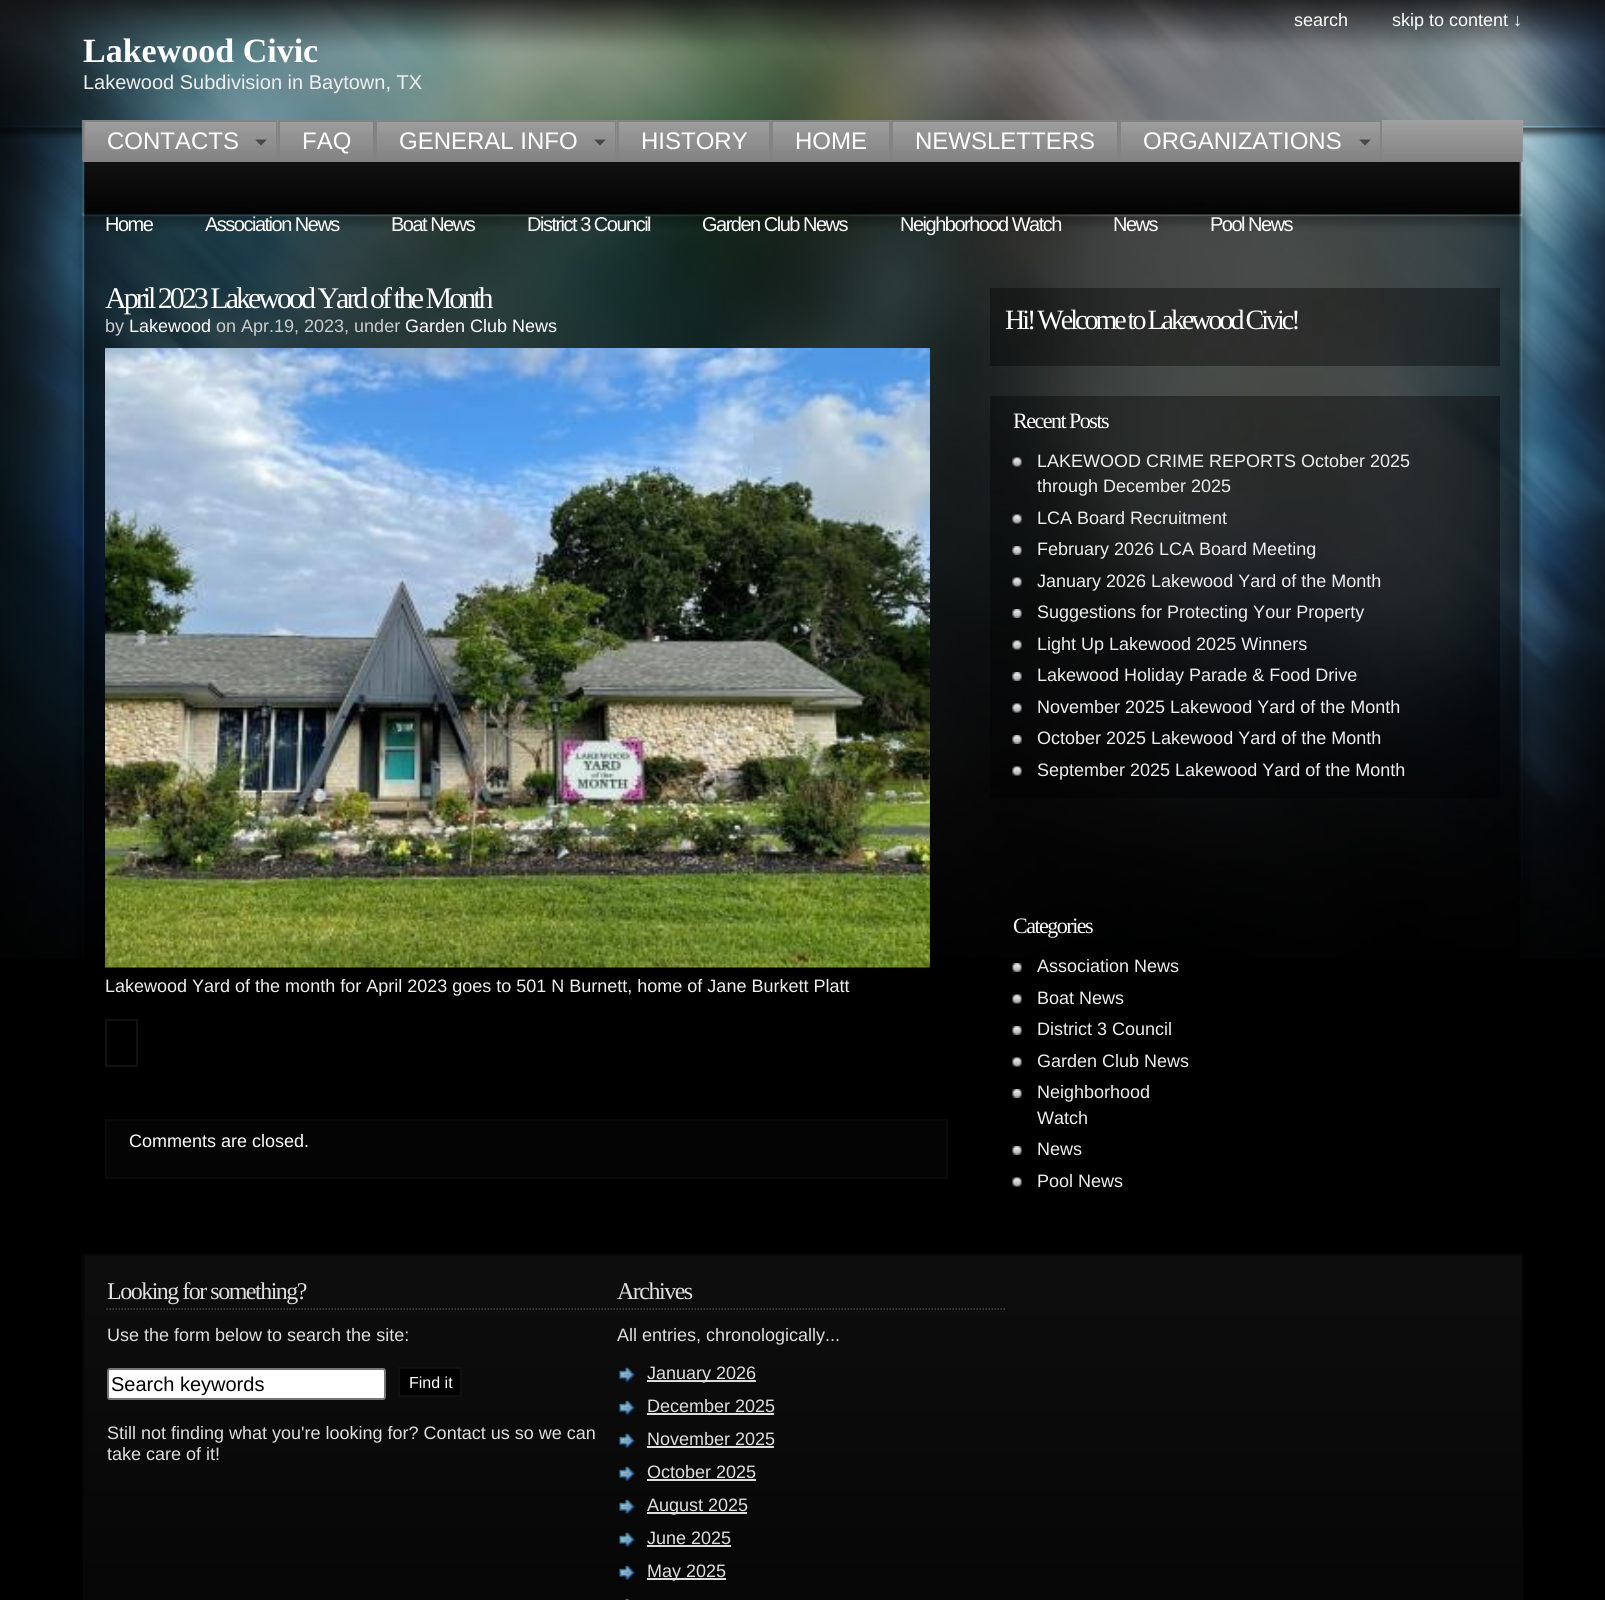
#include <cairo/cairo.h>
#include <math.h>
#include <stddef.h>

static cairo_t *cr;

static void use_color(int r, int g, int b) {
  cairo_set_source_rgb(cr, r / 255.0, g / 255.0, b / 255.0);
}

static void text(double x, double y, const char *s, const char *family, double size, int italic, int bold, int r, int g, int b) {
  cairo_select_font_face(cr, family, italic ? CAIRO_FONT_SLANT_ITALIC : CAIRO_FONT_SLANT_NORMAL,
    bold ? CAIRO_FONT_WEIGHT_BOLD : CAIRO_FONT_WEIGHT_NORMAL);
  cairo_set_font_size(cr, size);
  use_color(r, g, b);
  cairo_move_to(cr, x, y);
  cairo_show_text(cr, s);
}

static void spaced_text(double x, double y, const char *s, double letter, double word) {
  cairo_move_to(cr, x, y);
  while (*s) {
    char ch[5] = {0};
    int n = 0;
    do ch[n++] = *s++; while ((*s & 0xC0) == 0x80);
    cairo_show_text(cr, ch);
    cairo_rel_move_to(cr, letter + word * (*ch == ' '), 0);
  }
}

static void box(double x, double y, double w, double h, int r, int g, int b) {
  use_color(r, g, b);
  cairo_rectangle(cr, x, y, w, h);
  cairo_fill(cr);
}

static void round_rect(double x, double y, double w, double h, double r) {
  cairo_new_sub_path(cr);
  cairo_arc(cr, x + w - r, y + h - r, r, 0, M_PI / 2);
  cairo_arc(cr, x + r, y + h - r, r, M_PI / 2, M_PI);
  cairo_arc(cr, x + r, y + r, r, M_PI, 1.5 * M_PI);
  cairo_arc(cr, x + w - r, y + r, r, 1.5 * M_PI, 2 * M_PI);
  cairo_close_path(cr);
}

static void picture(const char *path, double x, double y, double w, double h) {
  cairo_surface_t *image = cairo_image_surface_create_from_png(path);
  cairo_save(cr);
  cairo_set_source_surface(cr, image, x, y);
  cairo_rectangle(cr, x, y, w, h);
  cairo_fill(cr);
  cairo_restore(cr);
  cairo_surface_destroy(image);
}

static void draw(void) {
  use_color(0, 0, 0);
  cairo_paint(cr);
  picture("img_01.png", 0, 0, 1605, 959);
  box(1522, 120, 1, 42, 160, 160, 160);
  picture("img_02.png", 82, 120, 1441, 42);
  picture("img_03.png", 82, 120, 194, 41);
  cairo_rectangle(cr, 84, 121, 193, 40);
  use_color(131, 131, 131);
  cairo_stroke(cr);
  use_color(72, 72, 72);
  cairo_new_path(cr);
  cairo_move_to(cr, 255, 139.5);
  cairo_line_to(cr, 267, 139.5);
  cairo_line_to(cr, 261, 145.5);
  cairo_close_path(cr);
  cairo_fill(cr);
  picture("img_04.png", 277, 120, 96, 41);
  cairo_rectangle(cr, 279, 121, 95, 40);
  use_color(131, 131, 131);
  cairo_stroke(cr);
  picture("img_05.png", 377, 122, 238, 38);
  cairo_rectangle(cr, 376, 121, 240, 40);
  cairo_stroke(cr);
  use_color(72, 72, 72);
  cairo_new_path(cr);
  cairo_move_to(cr, 594, 139.5);
  cairo_line_to(cr, 606, 139.5);
  cairo_line_to(cr, 600, 145.5);
  cairo_close_path(cr);
  cairo_fill(cr);
  picture("img_06.png", 616, 120, 153, 41);
  cairo_rectangle(cr, 618, 121, 152, 40);
  use_color(131, 131, 131);
  cairo_stroke(cr);
  picture("img_07.png", 773, 122, 116, 38);
  cairo_rectangle(cr, 772, 121, 118, 40);
  cairo_stroke(cr);
  picture("img_08.png", 893, 122, 224, 38);
  cairo_rectangle(cr, 892, 121, 226, 40);
  cairo_stroke(cr);
  picture("img_09.png", 1121, 122, 259, 38);
  cairo_rectangle(cr, 1120, 121, 261, 40);
  cairo_stroke(cr);
  use_color(72, 72, 72);
  cairo_new_path(cr);
  cairo_move_to(cr, 1359, 139.5);
  cairo_line_to(cr, 1371, 139.5);
  cairo_line_to(cr, 1365, 145.5);
  cairo_close_path(cr);
  cairo_fill(cr);
  picture("img_10.png", 105, 348, 825, 620);
  cairo_rectangle(cr, 106, 1020, 31, 46);
  use_color(17, 17, 17);
  cairo_stroke(cr);
  use_color(4, 4, 4);
  cairo_rectangle(cr, 106, 1120, 841, 58);
  cairo_fill_preserve(cr);
  use_color(9, 9, 9);
  cairo_stroke(cr);
  cairo_set_source_rgba(cr, 0, 0, 0, 0.38);
  cairo_rectangle(cr, 990, 288, 510, 78);
  cairo_fill(cr);
  cairo_rectangle(cr, 990, 396, 510, 402);
  cairo_fill(cr);
  picture("img_11.png", 1012, 457, 10, 10);
  picture("img_12.png", 1012, 514, 10, 10);
  picture("img_13.png", 1012, 546, 10, 9);
  picture("img_14.png", 1012, 577, 10, 10);
  picture("img_15.png", 1012, 609, 10, 9);
  picture("img_16.png", 1012, 640, 10, 10);
  picture("img_17.png", 1012, 672, 10, 9);
  picture("img_18.png", 1012, 703, 10, 10);
  picture("img_19.png", 1012, 735, 10, 9);
  picture("img_20.png", 1012, 766, 10, 10);
  picture("img_21.png", 1012, 963, 10, 9);
  picture("img_22.png", 1012, 994, 10, 10);
  picture("img_21.png", 1012, 1026, 10, 9);
  picture("img_22.png", 1012, 1057, 10, 10);
  picture("img_21.png", 1012, 1089, 10, 9);
  picture("img_21.png", 1012, 1146, 10, 9);
  picture("img_22.png", 1012, 1177, 10, 10);
  picture("img_23.png", 82, 1255, 1439, 345);
  cairo_rectangle(cr, 84, 1255, 1438, 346);
  use_color(7, 7, 7);
  cairo_stroke(cr);
  cairo_new_path(cr);
  cairo_move_to(cr, 106.5, 1309);
  cairo_line_to(cr, 616.5, 1309);
  use_color(68, 68, 68);
  cairo_set_line_width(cr, 1.5);
  cairo_set_dash(cr, (double[]){1.5, 1.5}, 2, 0);
  cairo_stroke(cr);
  use_color(255, 255, 255);
  round_rect(108, 1369, 277, 30, 2);
  cairo_fill_preserve(cr);
  use_color(118, 118, 118);
  cairo_set_line_width(cr, 2);
  cairo_set_dash(cr, NULL, 0, 0);
  cairo_stroke(cr);
  use_color(1, 1, 1);
  cairo_rectangle(cr, 399, 1368, 62, 28);
  cairo_fill_preserve(cr);
  use_color(17, 17, 17);
  cairo_stroke(cr);
  cairo_new_path(cr);
  cairo_move_to(cr, 616.5, 1309);
  cairo_line_to(cr, 1006.5, 1309);
  use_color(68, 68, 68);
  cairo_set_line_width(cr, 1.5);
  cairo_set_dash(cr, (double[]){1.5, 1.5}, 2, 0);
  cairo_stroke(cr);
  picture("img_24.png", 619, 1367, 16, 15);
  box(647, 1380, 109, 2, 221, 221, 221);
  picture("img_25.png", 619, 1400, 16, 15);
  box(647, 1413, 127, 2, 221, 221, 221);
  picture("img_26.png", 619, 1433, 16, 15);
  box(647, 1446, 127, 2, 221, 221, 221);
  picture("img_27.png", 619, 1466, 16, 15);
  box(647, 1479, 109, 2, 221, 221, 221);
  picture("img_28.png", 619, 1499, 16, 15);
  box(647, 1512, 100, 2, 221, 221, 221);
  picture("img_29.png", 619, 1532, 16, 16);
  box(647, 1545, 84, 2, 221, 221, 221);
  picture("img_30.png", 619, 1565, 16, 16);
  box(647, 1578, 79, 2, 221, 221, 221);
  picture("img_31.png", 625, 1598, 5, 2);
  text(1294, 26, "search", "Liberation Sans", 18, 0, 0, 255, 255, 255);
  text(1392, 26, "skip to content ↓", "Liberation Sans", 18, 0, 0, 255, 255, 255);
  text(83, 62, "Lakewood Civic", "Liberation Serif", 34, 0, 1, 255, 255, 255);
  text(83, 89, "Lakewood Subdivision in Baytown, TX", "Liberation Sans", 20, 0, 0, 239, 239, 239);
  text(107, 149, "CONTACTS", "Liberation Sans", 24, 0, 0, 255, 255, 255);
  text(302, 149, "FAQ", "Liberation Sans", 24, 0, 0, 255, 255, 255);
  text(399, 149, "GENERAL INFO", "Liberation Sans", 24, 0, 0, 255, 255, 255);
  text(641, 149, "HISTORY", "Liberation Sans", 24, 0, 0, 255, 255, 255);
  text(795, 149, "HOME", "Liberation Sans", 24, 0, 0, 255, 255, 255);
  text(915, 149, "NEWSLETTERS", "Liberation Sans", 24, 0, 0, 255, 255, 255);
  text(1143, 149, "ORGANIZATIONS", "Liberation Sans", 24, 0, 0, 255, 255, 255);
  cairo_set_font_size(cr, 20);
  spaced_text(105, 231, "Home", -1.5, 0);
  spaced_text(205, 231, "Association News", -1.5, 0);
  spaced_text(391, 231, "Boat News", -1.5, 0);
  spaced_text(527, 231, "District 3 Council", -1.5, 0);
  spaced_text(702, 231, "Garden Club News", -1.5, 0);
  spaced_text(900, 231, "Neighborhood Watch", -1.5, 0);
  spaced_text(1113, 231, "News", -1.5, 0);
  spaced_text(1210, 231, "Pool News", -1.5, 0);
  cairo_select_font_face(cr, "Liberation Serif", CAIRO_FONT_SLANT_NORMAL, CAIRO_FONT_WEIGHT_NORMAL);
  cairo_set_font_size(cr, 30);
  spaced_text(105, 308, "April 2023 Lakewood Yard of the Month", -3, 0);
  text(105, 332, "by", "Liberation Sans", 18, 0, 0, 205, 205, 205);
  text(129, 332, "Lakewood", "Liberation Sans", 18, 0, 0, 255, 255, 255);
  text(216, 332, "on Apr.19, 2023, under", "Liberation Sans", 18, 0, 0, 205, 205, 205);
  text(405, 332, "Garden Club News", "Liberation Sans", 18, 0, 0, 255, 255, 255);
  text(105, 992, "Lakewood Yard of the month for April 2023 goes to 501 N Burnett, home of Jane Burkett Platt", "Liberation Sans", 18, 0, 0, 239, 239, 239);
  text(129, 1147, "Comments are closed.", "Liberation Sans", 18, 0, 0, 255, 255, 255);
  cairo_select_font_face(cr, "Liberation Serif", CAIRO_FONT_SLANT_NORMAL, CAIRO_FONT_WEIGHT_NORMAL);
  cairo_set_font_size(cr, 28);
  spaced_text(1005, 329, "Hi! Welcome to Lakewood Civic!", -3, 0);
  cairo_set_font_size(cr, 22);
  spaced_text(1013, 428, "Recent Posts", -1.5, 0);
  text(1037, 467, "LAKEWOOD CRIME REPORTS October 2025", "Liberation Sans", 18, 0, 0, 239, 239, 239);
  text(1037, 492, "through December 2025", "Liberation Sans", 18, 0, 0, 239, 239, 239);
  text(1037, 524, "LCA Board Recruitment", "Liberation Sans", 18, 0, 0, 239, 239, 239);
  text(1037, 555, "February 2026 LCA Board Meeting", "Liberation Sans", 18, 0, 0, 239, 239, 239);
  text(1037, 587, "January 2026 Lakewood Yard of the Month", "Liberation Sans", 18, 0, 0, 239, 239, 239);
  text(1037, 618, "Suggestions for Protecting Your Property", "Liberation Sans", 18, 0, 0, 239, 239, 239);
  text(1037, 650, "Light Up Lakewood 2025 Winners", "Liberation Sans", 18, 0, 0, 239, 239, 239);
  text(1037, 681, "Lakewood Holiday Parade & Food Drive", "Liberation Sans", 18, 0, 0, 239, 239, 239);
  text(1037, 713, "November 2025 Lakewood Yard of the Month", "Liberation Sans", 18, 0, 0, 239, 239, 239);
  text(1037, 744, "October 2025 Lakewood Yard of the Month", "Liberation Sans", 18, 0, 0, 239, 239, 239);
  text(1037, 776, "September 2025 Lakewood Yard of the Month", "Liberation Sans", 18, 0, 0, 239, 239, 239);
  cairo_select_font_face(cr, "Liberation Serif", CAIRO_FONT_SLANT_NORMAL, CAIRO_FONT_WEIGHT_NORMAL);
  cairo_set_font_size(cr, 22);
  use_color(255, 255, 255);
  spaced_text(1013, 933, "Categories", -1.5, 0);
  text(1037, 972, "Association News", "Liberation Sans", 18, 0, 0, 239, 239, 239);
  text(1037, 1004, "Boat News", "Liberation Sans", 18, 0, 0, 239, 239, 239);
  text(1037, 1035, "District 3 Council", "Liberation Sans", 18, 0, 0, 239, 239, 239);
  text(1037, 1067, "Garden Club News", "Liberation Sans", 18, 0, 0, 239, 239, 239);
  text(1037, 1098, "Neighborhood", "Liberation Sans", 18, 0, 0, 239, 239, 239);
  text(1037, 1124, "Watch", "Liberation Sans", 18, 0, 0, 239, 239, 239);
  text(1037, 1155, "News", "Liberation Sans", 18, 0, 0, 239, 239, 239);
  text(1037, 1187, "Pool News", "Liberation Sans", 18, 0, 0, 239, 239, 239);
  cairo_select_font_face(cr, "Liberation Serif", CAIRO_FONT_SLANT_NORMAL, CAIRO_FONT_WEIGHT_NORMAL);
  cairo_set_font_size(cr, 24);
  use_color(223, 223, 223);
  spaced_text(107, 1299, "Looking for something?", -1.5, 0);
  text(107, 1341, "Use the form below to search the site:", "Liberation Sans", 18, 0, 0, 223, 223, 223);
  text(111, 1391, "Search keywords", "Liberation Sans", 20, 0, 0, 0, 0, 0);
  text(409, 1388, "Find it", "Liberation Sans", 16, 0, 0, 255, 255, 255);
  text(107, 1439, "Still not finding what you're looking for? Contact us so we can", "Liberation Sans", 18, 0, 0, 223, 223, 223);
  text(107, 1460, "take care of it!", "Liberation Sans", 18, 0, 0, 223, 223, 223);
  cairo_select_font_face(cr, "Liberation Serif", CAIRO_FONT_SLANT_NORMAL, CAIRO_FONT_WEIGHT_NORMAL);
  cairo_set_font_size(cr, 24);
  spaced_text(617, 1299, "Archives", -1.5, 0);
  text(617, 1341, "All entries, chronologically...", "Liberation Sans", 18, 0, 0, 223, 223, 223);
  text(647, 1379, "January 2026", "Liberation Sans", 18, 0, 0, 223, 223, 223);
  text(647, 1412, "December 2025", "Liberation Sans", 18, 0, 0, 223, 223, 223);
  text(647, 1445, "November 2025", "Liberation Sans", 18, 0, 0, 223, 223, 223);
  text(647, 1478, "October 2025", "Liberation Sans", 18, 0, 0, 223, 223, 223);
  text(647, 1511, "August 2025", "Liberation Sans", 18, 0, 0, 223, 223, 223);
  text(647, 1544, "June 2025", "Liberation Sans", 18, 0, 0, 223, 223, 223);
  text(647, 1577, "May 2025", "Liberation Sans", 18, 0, 0, 223, 223, 223);
}

int main(void) {
  cairo_surface_t *surface = cairo_image_surface_create(CAIRO_FORMAT_RGB24, 1605, 1600);
  cr = cairo_create(surface);
  cairo_font_options_t *options = cairo_font_options_create();
  cairo_font_options_set_hint_metrics(options, CAIRO_HINT_METRICS_OFF);
  cairo_font_options_set_hint_style(options, CAIRO_HINT_STYLE_NONE);
  cairo_set_font_options(cr, options);
  cairo_set_miter_limit(cr, 4);
  draw();
  cairo_surface_write_to_png(surface, "out.png");
  cairo_font_options_destroy(options);
  cairo_destroy(cr);
  cairo_surface_destroy(surface);
  return 0;
}
